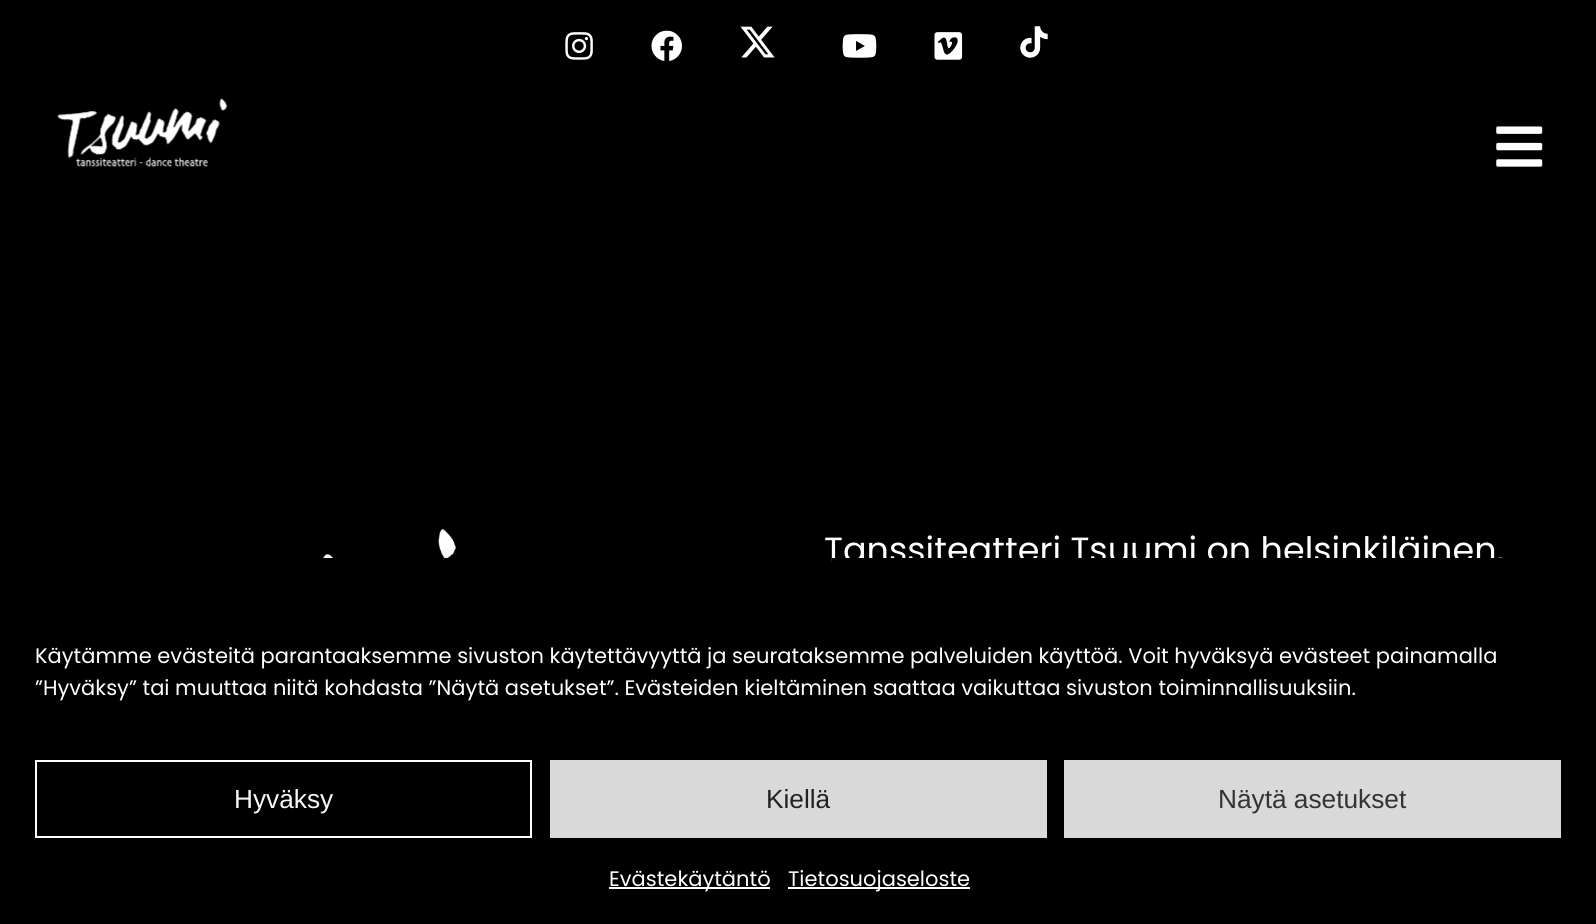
#include <cairo/cairo.h>
#include <math.h>
#include <stddef.h>

static cairo_t *cr;

static void use_color(int r, int g, int b) {
  cairo_set_source_rgb(cr, r / 255.0, g / 255.0, b / 255.0);
}

static void text(double x, double y, const char *s, const char *family, double size, int italic, int bold, int r, int g, int b) {
  cairo_select_font_face(cr, family, italic ? CAIRO_FONT_SLANT_ITALIC : CAIRO_FONT_SLANT_NORMAL,
    bold ? CAIRO_FONT_WEIGHT_BOLD : CAIRO_FONT_WEIGHT_NORMAL);
  cairo_set_font_size(cr, size);
  use_color(r, g, b);
  cairo_move_to(cr, x, y);
  cairo_show_text(cr, s);
}

static void box(double x, double y, double w, double h, int r, int g, int b) {
  use_color(r, g, b);
  cairo_rectangle(cr, x, y, w, h);
  cairo_fill(cr);
}

static void round_rect(double x, double y, double w, double h, double r) {
  cairo_new_sub_path(cr);
  cairo_arc(cr, x + w - r, y + h - r, r, 0, M_PI / 2);
  cairo_arc(cr, x + r, y + h - r, r, M_PI / 2, M_PI);
  cairo_arc(cr, x + r, y + r, r, M_PI, 1.5 * M_PI);
  cairo_arc(cr, x + w - r, y + r, r, 1.5 * M_PI, 2 * M_PI);
  cairo_close_path(cr);
}

static void shadow(double x, double y, double w, double h, double r, double blur, double alpha) {
  cairo_push_group_with_content(cr, CAIRO_CONTENT_ALPHA);
  cairo_set_operator(cr, CAIRO_OPERATOR_SOURCE);
  for (int i = 15; i >= -15 && fmin(w, h) + blur * i / 3 > 0; i -= 2) {
    double e = blur * i / 6;
    cairo_set_source_rgba(cr, 0, 0, 0, alpha * erfc((i - 1) / 8.5) / 2);
    round_rect(x - e, y - e, w + 2 * e, h + 2 * e, fmax(0, fmin(r + e + blur * .6, fmin(w, h) / 2 + e)));
    cairo_fill(cr);
  }
  cairo_pattern_t *soft = cairo_pop_group(cr);
  cairo_mask(cr, soft);
  cairo_pattern_destroy(soft);
}

static void picture(const char *path, double x, double y, double w, double h) {
  cairo_surface_t *image = cairo_image_surface_create_from_png(path);
  cairo_save(cr);
  cairo_set_source_surface(cr, image, x, y);
  cairo_rectangle(cr, x, y, w, h);
  cairo_fill(cr);
  cairo_restore(cr);
  cairo_surface_destroy(image);
}

static void draw(void) {
  use_color(0, 0, 0);
  cairo_paint(cr);
  picture("img_01.png", 565, 32, 28, 28);
  picture("img_02.png", 651, 30, 31, 31);
  picture("img_03.png", 740, 26, 35, 32);
  picture("img_04.png", 842, 34, 35, 24);
  picture("img_05.png", 934, 32, 29, 28);
  picture("img_06.png", 1020, 26, 28, 32);
  picture("img_07.png", 57, 98, 171, 69);
  picture("img_08.png", 1496, 126, 47, 41);
  picture("img_09.png", 323, 528, 133, 30);
  shadow(0, 576, 1596, 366, 0, 17.5, 0.19);
  cairo_rectangle(cr, 36, 761, 495, 76);
  use_color(255, 255, 255);
  cairo_stroke(cr);
  box(550, 760, 497, 78, 217, 217, 217);
  box(1064, 760, 497, 78, 217, 217, 217);
  box(609, 887, 161, 2, 255, 255, 255);
  box(788, 887, 182, 2, 255, 255, 255);
  text(824, 562, "Tanssiteatteri Tsuumi on helsinkiläinen,", "Poppins", 35, 0, 0, 255, 255, 255);
  box(832, 558, 671, 9, 0, 0, 0);
  text(35, 663, "Käytämme evästeitä parantaaksemme sivuston käytettävyyttä ja seurataksemme palveluiden käyttöä. Voit hyväksyä evästeet painamalla", "Poppins", 21, 0, 0, 255, 255, 255);
  text(35, 695, "”Hyväksy” tai muuttaa niitä kohdasta ”Näytä asetukset”. Evästeiden kieltäminen saattaa vaikuttaa sivuston toiminnallisuuksiin.", "Poppins", 21, 0, 0, 255, 255, 255);
  text(234, 808, "Hyväksy", "Liberation Sans", 26.25, 0, 0, 249, 248, 248);
  text(766, 808, "Kiellä", "Liberation Sans", 26.25, 0, 0, 34, 34, 34);
  text(1218, 808, "Näytä asetukset", "Liberation Sans", 26.25, 0, 0, 51, 51, 51);
  text(609, 886, "Evästekäytäntö", "Poppins", 21, 0, 0, 255, 255, 255);
  text(788, 886, "Tietosuojaseloste", "Poppins", 21, 0, 0, 255, 255, 255);
}

int main(void) {
  cairo_surface_t *surface = cairo_image_surface_create(CAIRO_FORMAT_RGB24, 1596, 924);
  cr = cairo_create(surface);
  cairo_font_options_t *options = cairo_font_options_create();
  cairo_font_options_set_hint_metrics(options, CAIRO_HINT_METRICS_OFF);
  cairo_font_options_set_hint_style(options, CAIRO_HINT_STYLE_NONE);
  cairo_set_font_options(cr, options);
  cairo_set_miter_limit(cr, 4);
  draw();
  cairo_surface_write_to_png(surface, "out.png");
  cairo_font_options_destroy(options);
  cairo_destroy(cr);
  cairo_surface_destroy(surface);
  return 0;
}
